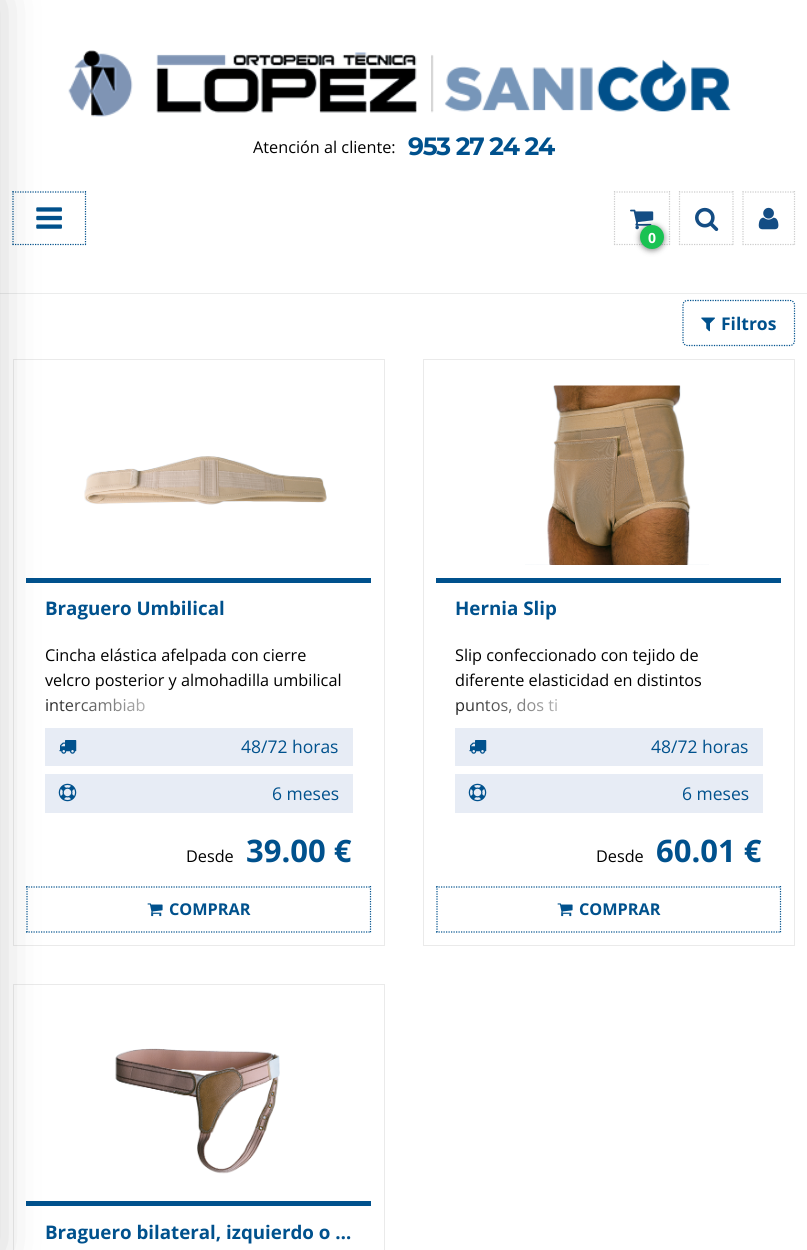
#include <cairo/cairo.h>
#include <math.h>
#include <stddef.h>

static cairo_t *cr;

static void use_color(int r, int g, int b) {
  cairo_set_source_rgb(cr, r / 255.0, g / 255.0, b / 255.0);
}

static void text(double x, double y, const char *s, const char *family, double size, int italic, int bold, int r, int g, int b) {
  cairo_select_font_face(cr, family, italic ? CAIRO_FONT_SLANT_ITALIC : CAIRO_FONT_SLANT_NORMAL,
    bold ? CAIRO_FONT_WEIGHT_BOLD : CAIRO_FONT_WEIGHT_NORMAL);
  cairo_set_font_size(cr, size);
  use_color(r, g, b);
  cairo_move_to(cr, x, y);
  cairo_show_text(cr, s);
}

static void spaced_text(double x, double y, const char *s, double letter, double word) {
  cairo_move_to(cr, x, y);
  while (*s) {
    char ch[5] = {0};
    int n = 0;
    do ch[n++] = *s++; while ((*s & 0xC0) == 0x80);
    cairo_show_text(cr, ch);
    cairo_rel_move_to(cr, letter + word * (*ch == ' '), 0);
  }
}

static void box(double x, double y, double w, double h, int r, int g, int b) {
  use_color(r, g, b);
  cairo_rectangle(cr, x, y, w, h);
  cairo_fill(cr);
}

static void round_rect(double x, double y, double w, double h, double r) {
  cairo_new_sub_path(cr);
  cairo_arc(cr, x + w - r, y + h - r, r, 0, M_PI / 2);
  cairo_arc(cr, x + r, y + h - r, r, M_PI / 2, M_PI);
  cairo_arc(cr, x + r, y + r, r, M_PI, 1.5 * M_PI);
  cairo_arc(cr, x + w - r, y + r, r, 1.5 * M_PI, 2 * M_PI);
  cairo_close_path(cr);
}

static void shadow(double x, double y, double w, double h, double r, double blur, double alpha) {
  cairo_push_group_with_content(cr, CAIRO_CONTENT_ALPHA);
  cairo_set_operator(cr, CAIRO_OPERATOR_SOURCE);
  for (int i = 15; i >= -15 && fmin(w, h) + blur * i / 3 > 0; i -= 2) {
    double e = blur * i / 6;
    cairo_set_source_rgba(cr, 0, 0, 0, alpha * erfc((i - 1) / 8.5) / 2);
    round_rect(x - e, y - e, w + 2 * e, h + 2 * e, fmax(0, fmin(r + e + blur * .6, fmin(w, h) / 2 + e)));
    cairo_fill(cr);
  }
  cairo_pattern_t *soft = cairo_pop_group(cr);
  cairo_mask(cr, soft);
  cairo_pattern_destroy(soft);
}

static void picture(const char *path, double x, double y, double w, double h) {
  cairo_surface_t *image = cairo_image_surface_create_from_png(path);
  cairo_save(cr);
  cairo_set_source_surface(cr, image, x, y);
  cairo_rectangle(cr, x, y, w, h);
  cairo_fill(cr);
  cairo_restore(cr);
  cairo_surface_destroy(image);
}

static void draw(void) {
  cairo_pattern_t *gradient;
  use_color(255, 255, 255);
  cairo_paint(cr);
  picture("img_01.png", 68, 50, 663, 67);
  cairo_new_path(cr);
  cairo_move_to(cr, 12.5, 192);
  cairo_line_to(cr, 86, 192);
  use_color(0, 80, 139);
  cairo_set_line_width(cr, 1.2);
  cairo_set_dash(cr, (double[]){1.25, 1.25}, 2, 0);
  cairo_stroke(cr);
  cairo_new_path(cr);
  cairo_move_to(cr, 85.5, 191);
  cairo_line_to(cr, 85.5, 245);
  cairo_stroke(cr);
  cairo_new_path(cr);
  cairo_move_to(cr, 12.5, 244.5);
  cairo_line_to(cr, 86, 244.5);
  cairo_stroke(cr);
  cairo_new_path(cr);
  cairo_move_to(cr, 13, 191);
  cairo_line_to(cr, 13, 245);
  cairo_stroke(cr);
  picture("img_02.png", 36, 207, 26, 22);
  cairo_new_path(cr);
  cairo_move_to(cr, 614, 192);
  cairo_line_to(cr, 670, 192);
  cairo_move_to(cr, 669.5, 191);
  cairo_line_to(cr, 669.5, 245);
  cairo_move_to(cr, 614, 244.5);
  cairo_line_to(cr, 670, 244.5);
  cairo_move_to(cr, 614.5, 191);
  cairo_line_to(cr, 614.5, 245);
  use_color(204, 204, 204);
  cairo_stroke(cr);
  picture("img_03.png", 630, 209, 24, 21);
  use_color(0, 0, 0);
  shadow(640, 226, 24, 24, 12, 3, 0.5);
  use_color(26, 194, 82);
  cairo_arc(cr, 652, 237, 12, 0, 2 * M_PI);
  cairo_fill(cr);
  cairo_new_path(cr);
  cairo_move_to(cr, 679, 192);
  cairo_line_to(cr, 734, 192);
  cairo_move_to(cr, 733, 191);
  cairo_line_to(cr, 733, 245);
  cairo_move_to(cr, 679, 244.5);
  cairo_line_to(cr, 734, 244.5);
  cairo_move_to(cr, 679.5, 191);
  cairo_line_to(cr, 679.5, 245);
  use_color(204, 204, 204);
  cairo_stroke(cr);
  picture("img_04.png", 695, 207, 24, 25);
  cairo_new_path(cr);
  cairo_move_to(cr, 742.5, 192);
  cairo_line_to(cr, 795, 192);
  cairo_move_to(cr, 794.5, 191);
  cairo_line_to(cr, 794.5, 245);
  cairo_move_to(cr, 742.5, 244.5);
  cairo_line_to(cr, 795, 244.5);
  cairo_move_to(cr, 743, 191);
  cairo_line_to(cr, 743, 245);
  cairo_stroke(cr);
  picture("img_05.png", 758, 207, 21, 23);
  box(0, 293, 807, 1, 235, 236, 236);
  cairo_new_path(cr);
  cairo_move_to(cr, 687.5, 300.5);
  cairo_line_to(cr, 790, 300.5);
  cairo_curve_to(cr, 792.5, 300.5, 794.5, 302.5, 794.5, 305);
  cairo_line_to(cr, 794.5, 341);
  cairo_curve_to(cr, 794.5, 343.5, 792.5, 345.5, 790, 345.5);
  cairo_line_to(cr, 687.5, 345.5);
  cairo_curve_to(cr, 685, 345.5, 683, 343.5, 683, 341);
  cairo_line_to(cr, 683, 305);
  cairo_curve_to(cr, 683, 302.5, 685, 300.5, 687.5, 300.5);
  cairo_close_path(cr);
  use_color(0, 81, 141);
  cairo_stroke(cr);
  picture("img_06.png", 701, 317, 14, 15);
  cairo_rectangle(cr, 13.5, 359.5, 371, 586);
  use_color(234, 234, 234);
  cairo_set_line_width(cr, 1);
  cairo_set_dash(cr, NULL, 0, 0);
  cairo_stroke(cr);
  box(26, 578, 345, 5, 0, 81, 141);
  picture("img_07.png", 84, 456, 243, 49);
  box(45, 728, 308, 38, 231, 236, 245);
  picture("img_08.png", 59, 740, 18, 14);
  box(45, 774, 308, 39, 231, 236, 245);
  picture("img_09.png", 58, 783, 19, 19);
  cairo_new_path(cr);
  cairo_move_to(cr, 26, 887);
  cairo_line_to(cr, 371, 887);
  use_color(0, 81, 141);
  cairo_set_line_width(cr, 1.2);
  cairo_set_dash(cr, (double[]){1.25, 1.25}, 2, 0);
  cairo_stroke(cr);
  cairo_new_path(cr);
  cairo_move_to(cr, 370.5, 886);
  cairo_line_to(cr, 370.5, 932.5);
  cairo_stroke(cr);
  cairo_new_path(cr);
  cairo_move_to(cr, 26, 932);
  cairo_line_to(cr, 371, 932);
  cairo_stroke(cr);
  cairo_new_path(cr);
  cairo_move_to(cr, 27, 886);
  cairo_line_to(cr, 27, 932.5);
  cairo_stroke(cr);
  picture("img_10.png", 147, 903, 16, 14);
  cairo_rectangle(cr, 423.5, 359.5, 371, 586);
  use_color(234, 234, 234);
  cairo_set_line_width(cr, 1);
  cairo_set_dash(cr, NULL, 0, 0);
  cairo_stroke(cr);
  box(436, 578, 345, 5, 0, 81, 141);
  picture("img_11.png", 525, 385, 184, 180);
  box(455, 728, 308, 38, 231, 236, 245);
  picture("img_08.png", 469, 740, 18, 14);
  box(455, 774, 308, 39, 231, 236, 245);
  picture("img_09.png", 468, 783, 19, 19);
  cairo_new_path(cr);
  cairo_move_to(cr, 436, 887);
  cairo_line_to(cr, 781, 887);
  use_color(0, 81, 141);
  cairo_set_line_width(cr, 1.2);
  cairo_set_dash(cr, (double[]){1.25, 1.25}, 2, 0);
  cairo_stroke(cr);
  cairo_new_path(cr);
  cairo_move_to(cr, 780.5, 886);
  cairo_line_to(cr, 780.5, 932.5);
  cairo_stroke(cr);
  cairo_new_path(cr);
  cairo_move_to(cr, 436, 932);
  cairo_line_to(cr, 781, 932);
  cairo_stroke(cr);
  cairo_new_path(cr);
  cairo_move_to(cr, 437, 886);
  cairo_line_to(cr, 437, 932.5);
  cairo_stroke(cr);
  picture("img_10.png", 557, 903, 16, 14);
  cairo_rectangle(cr, 13.5, 984.5, 371, 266);
  use_color(234, 234, 234);
  cairo_set_line_width(cr, 1);
  cairo_set_dash(cr, NULL, 0, 0);
  cairo_stroke(cr);
  box(26, 1201, 345, 5, 0, 81, 141);
  picture("img_12.png", 115, 1048, 165, 126);
  text(253, 153, "Atención al cliente:", "Open Sans", 16.25, 0, 0, 0, 0, 0);
  cairo_select_font_face(cr, "Montserrat", CAIRO_FONT_SLANT_NORMAL, CAIRO_FONT_WEIGHT_BOLD);
  cairo_set_font_size(cr, 25);
  use_color(0, 81, 141);
  spaced_text(408, 155, "953 27 24 24", -1.25, 0);
  text(648, 243, "0", "Open Sans", 14, 0, 1, 255, 255, 255);
  text(721, 330, "Filtros", "Open Sans", 17.5, 0, 1, 0, 81, 141);
  text(45, 615, "Braguero Umbilical", "Open Sans", 18.75, 0, 1, 0, 81, 141);
  text(45, 661, "Cincha elástica afelpada con cierre", "Open Sans", 16.25, 0, 0, 0, 0, 0);
  text(45, 686, "velcro posterior y almohadilla umbilical", "Open Sans", 16.25, 0, 0, 0, 0, 0);
  text(45, 711, "intercambiab", "Open Sans", 16.25, 0, 0, 0, 0, 0);
  gradient = cairo_pattern_create_linear(26, 705, 371, 705);
  cairo_pattern_add_color_stop_rgba(gradient, 0, 1, 1, 1, 0);
  cairo_pattern_add_color_stop_rgba(gradient, 0.5, 1, 1, 1, 1);
  cairo_set_source(cr, gradient);
  cairo_pattern_destroy(gradient);
  cairo_rectangle(cr, 46, 698, 99, 14);
  cairo_fill(cr);
  use_color(0, 0, 0);
  shadow(-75, 0, 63, 1250, 0, 25, 0.3);
  text(241, 753, "48/72 horas", "Open Sans", 17.5, 0, 0, 0, 81, 141);
  text(272, 800, "6 meses", "Open Sans", 17.5, 0, 0, 0, 81, 141);
  text(186, 862, "Desde", "Open Sans", 16.25, 0, 0, 0, 0, 0);
  text(246, 862, "39.00 €", "Open Sans", 31, 0, 1, 0, 81, 141);
  text(169, 915, "COMPRAR", "Open Sans", 16.25, 0, 1, 0, 81, 141);
  text(455, 615, "Hernia Slip", "Open Sans", 18.75, 0, 1, 0, 81, 141);
  text(455, 661, "Slip confeccionado con tejido de", "Open Sans", 16.25, 0, 0, 0, 0, 0);
  text(455, 686, "diferente elasticidad en distintos", "Open Sans", 16.25, 0, 0, 0, 0, 0);
  text(455, 711, "puntos, dos ti", "Open Sans", 16.25, 0, 0, 0, 0, 0);
  gradient = cairo_pattern_create_linear(436, 705, 781, 705);
  cairo_pattern_add_color_stop_rgba(gradient, 0, 1, 1, 1, 0);
  cairo_pattern_add_color_stop_rgba(gradient, 0.5, 1, 1, 1, 1);
  cairo_set_source(cr, gradient);
  cairo_pattern_destroy(gradient);
  cairo_rectangle(cr, 456, 698, 101, 17);
  cairo_fill(cr);
  text(651, 753, "48/72 horas", "Open Sans", 17.5, 0, 0, 0, 81, 141);
  text(682, 800, "6 meses", "Open Sans", 17.5, 0, 0, 0, 81, 141);
  text(596, 862, "Desde", "Open Sans", 16.25, 0, 0, 0, 0, 0);
  text(656, 862, "60.01 €", "Open Sans", 31, 0, 1, 0, 81, 141);
  text(579, 915, "COMPRAR", "Open Sans", 16.25, 0, 1, 0, 81, 141);
  text(45, 1239, "Braguero bilateral, izquierdo o …", "Open Sans", 18.75, 0, 1, 0, 81, 141);
}

int main(void) {
  cairo_surface_t *surface = cairo_image_surface_create(CAIRO_FORMAT_RGB24, 807, 1250);
  cr = cairo_create(surface);
  cairo_font_options_t *options = cairo_font_options_create();
  cairo_font_options_set_hint_metrics(options, CAIRO_HINT_METRICS_OFF);
  cairo_font_options_set_hint_style(options, CAIRO_HINT_STYLE_NONE);
  cairo_set_font_options(cr, options);
  cairo_set_miter_limit(cr, 4);
  draw();
  cairo_surface_write_to_png(surface, "out.png");
  cairo_font_options_destroy(options);
  cairo_destroy(cr);
  cairo_surface_destroy(surface);
  return 0;
}
